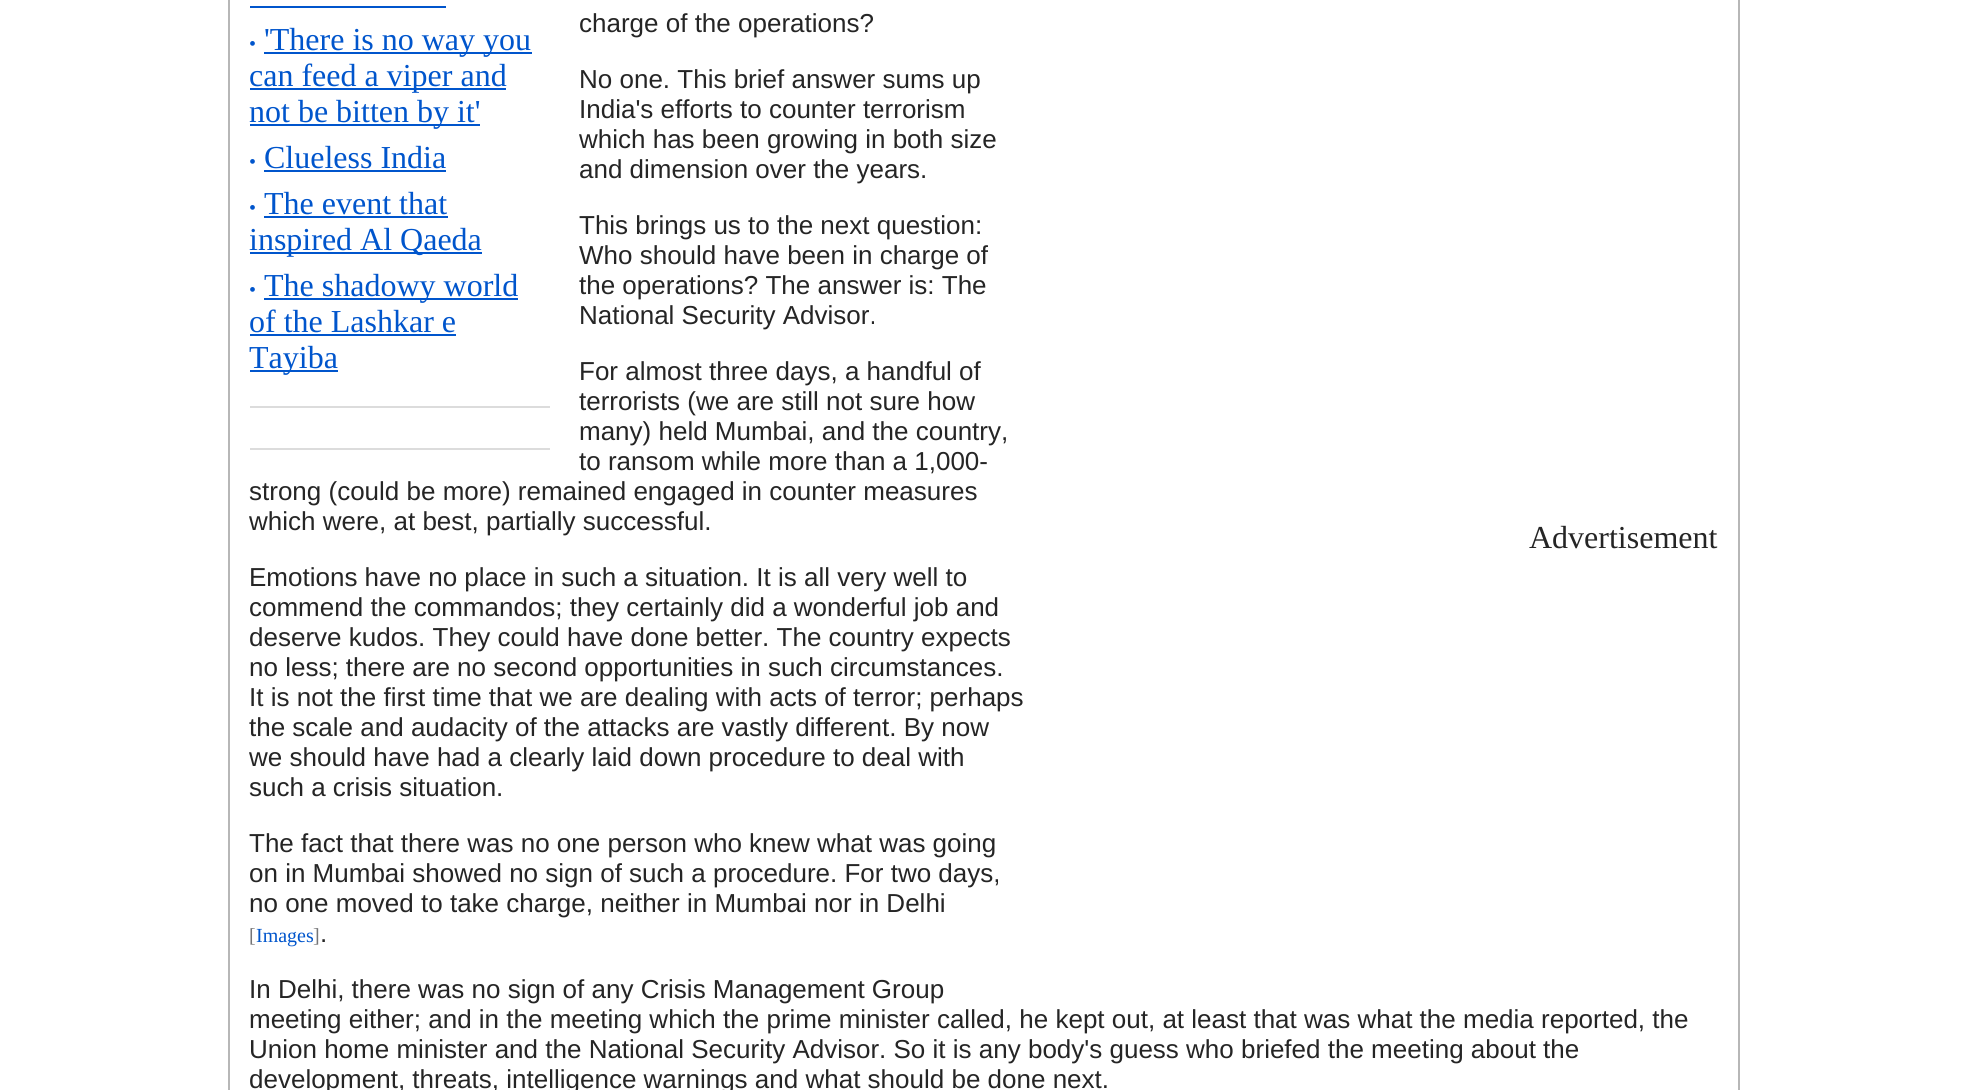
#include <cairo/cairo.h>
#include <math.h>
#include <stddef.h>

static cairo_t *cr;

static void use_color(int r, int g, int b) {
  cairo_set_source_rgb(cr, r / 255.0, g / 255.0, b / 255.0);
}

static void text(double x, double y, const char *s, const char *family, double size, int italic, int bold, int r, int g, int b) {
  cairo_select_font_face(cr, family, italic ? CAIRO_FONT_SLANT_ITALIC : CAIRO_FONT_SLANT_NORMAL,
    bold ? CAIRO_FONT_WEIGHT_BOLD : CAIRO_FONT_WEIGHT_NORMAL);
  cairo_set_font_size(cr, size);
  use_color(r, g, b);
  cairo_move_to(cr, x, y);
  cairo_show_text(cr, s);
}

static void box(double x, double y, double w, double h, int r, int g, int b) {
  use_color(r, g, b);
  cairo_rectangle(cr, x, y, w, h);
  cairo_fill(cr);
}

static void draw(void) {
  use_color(255, 255, 255);
  cairo_paint(cr);
  box(1738, 0, 2, 1090, 183, 183, 183);
  box(228, 0, 2, 1090, 183, 183, 183);
  box(250, 6, 196, 2, 0, 85, 204);
  box(264, 52, 268, 2, 0, 85, 204);
  box(250, 88, 256, 2, 0, 85, 204);
  box(250, 124, 230, 2, 0, 85, 204);
  box(264, 170, 182, 2, 0, 85, 204);
  box(264, 216, 184, 2, 0, 85, 204);
  box(250, 252, 232, 2, 0, 85, 204);
  box(264, 298, 254, 2, 0, 85, 204);
  box(250, 334, 206, 2, 0, 85, 204);
  box(250, 370, 88, 2, 0, 85, 204);
  box(250, 406, 300, 2, 220, 220, 220);
  box(250, 448, 300, 2, 220, 220, 220);
  text(579, 32, "charge of the operations?", "Liberation Sans", 26, 0, 0, 37, 37, 37);
  text(579, 88, "No one. This brief answer sums up", "Liberation Sans", 26, 0, 0, 37, 37, 37);
  text(579, 118, "India's efforts to counter terrorism", "Liberation Sans", 26, 0, 0, 37, 37, 37);
  text(579, 148, "which has been growing in both size", "Liberation Sans", 26, 0, 0, 37, 37, 37);
  text(579, 178, "and dimension over the years.", "Liberation Sans", 26, 0, 0, 37, 37, 37);
  text(579, 234, "This brings us to the next question:", "Liberation Sans", 26, 0, 0, 37, 37, 37);
  text(579, 264, "Who should have been in charge of", "Liberation Sans", 26, 0, 0, 37, 37, 37);
  text(579, 294, "the operations? The answer is: The", "Liberation Sans", 26, 0, 0, 37, 37, 37);
  text(579, 324, "National Security Advisor.", "Liberation Sans", 26, 0, 0, 37, 37, 37);
  text(579, 380, "For almost three days, a handful of", "Liberation Sans", 26, 0, 0, 37, 37, 37);
  text(579, 410, "terrorists (we are still not sure how", "Liberation Sans", 26, 0, 0, 37, 37, 37);
  text(579, 440, "many) held Mumbai, and the country,", "Liberation Sans", 26, 0, 0, 37, 37, 37);
  text(579, 470, "to ransom while more than a 1,000-", "Liberation Sans", 26, 0, 0, 37, 37, 37);
  text(249, 500, "strong (could be more) remained engaged in counter measures", "Liberation Sans", 26, 0, 0, 37, 37, 37);
  text(249, 530, "which were, at best, partially successful.", "Liberation Sans", 26, 0, 0, 37, 37, 37);
  text(249, 586, "Emotions have no place in such a situation. It is all very well to", "Liberation Sans", 26, 0, 0, 37, 37, 37);
  text(249, 616, "commend the commandos; they certainly did a wonderful job and", "Liberation Sans", 26, 0, 0, 37, 37, 37);
  text(249, 646, "deserve kudos. They could have done better. The country expects", "Liberation Sans", 26, 0, 0, 37, 37, 37);
  text(249, 676, "no less; there are no second opportunities in such circumstances.", "Liberation Sans", 26, 0, 0, 37, 37, 37);
  text(249, 706, "It is not the first time that we are dealing with acts of terror; perhaps", "Liberation Sans", 26, 0, 0, 37, 37, 37);
  text(249, 736, "the scale and audacity of the attacks are vastly different. By now", "Liberation Sans", 26, 0, 0, 37, 37, 37);
  text(249, 766, "we should have had a clearly laid down procedure to deal with", "Liberation Sans", 26, 0, 0, 37, 37, 37);
  text(249, 796, "such a crisis situation.", "Liberation Sans", 26, 0, 0, 37, 37, 37);
  text(249, 852, "The fact that there was no one person who knew what was going", "Liberation Sans", 26, 0, 0, 37, 37, 37);
  text(249, 882, "on in Mumbai showed no sign of such a procedure. For two days,", "Liberation Sans", 26, 0, 0, 37, 37, 37);
  text(249, 912, "no one moved to take charge, neither in Mumbai nor in Delhi", "Liberation Sans", 26, 0, 0, 37, 37, 37);
  text(249, 942, "[", "Liberation Serif", 20, 0, 0, 117, 117, 119);
  text(256, 942, "Images", "Liberation Serif", 20, 0, 0, 0, 85, 204);
  text(313, 942, "]", "Liberation Serif", 20, 0, 0, 117, 117, 119);
  text(320, 942, ".", "Liberation Sans", 26, 0, 0, 37, 37, 37);
  text(249, 998, "In Delhi, there was no sign of any Crisis Management Group", "Liberation Sans", 26, 0, 0, 37, 37, 37);
  text(249, 1028, "meeting either; and in the meeting which the prime minister called, he kept out, at least that was what the media reported, the", "Liberation Sans", 26, 0, 0, 37, 37, 37);
  text(249, 1058, "Union home minister and the National Security Advisor. So it is any body's guess who briefed the meeting about the", "Liberation Sans", 26, 0, 0, 37, 37, 37);
  text(249, 1088, "development, threats, intelligence warnings and what should be done next.", "Liberation Sans", 26, 0, 0, 37, 37, 37);
  text(249, 50, "•", "Liberation Serif", 20, 0, 0, 0, 85, 204);
  text(264, 50, "'There is no way you", "Liberation Serif", 32, 0, 0, 0, 85, 204);
  text(249, 86, "can feed a viper and", "Liberation Serif", 32, 0, 0, 0, 85, 204);
  text(249, 122, "not be bitten by it'", "Liberation Serif", 32, 0, 0, 0, 85, 204);
  text(249, 168, "•", "Liberation Serif", 20, 0, 0, 0, 85, 204);
  text(264, 168, "Clueless India", "Liberation Serif", 32, 0, 0, 0, 85, 204);
  text(249, 214, "•", "Liberation Serif", 20, 0, 0, 0, 85, 204);
  text(264, 214, "The event that", "Liberation Serif", 32, 0, 0, 0, 85, 204);
  text(249, 250, "inspired Al Qaeda", "Liberation Serif", 32, 0, 0, 0, 85, 204);
  text(249, 296, "•", "Liberation Serif", 20, 0, 0, 0, 85, 204);
  text(264, 296, "The shadowy world", "Liberation Serif", 32, 0, 0, 0, 85, 204);
  text(249, 332, "of the Lashkar e", "Liberation Serif", 32, 0, 0, 0, 85, 204);
  text(249, 368, "Tayiba", "Liberation Serif", 32, 0, 0, 0, 85, 204);
  text(1529, 548, "Advertisement", "Liberation Serif", 32, 0, 0, 37, 37, 37);
}

int main(void) {
  cairo_surface_t *surface = cairo_image_surface_create(CAIRO_FORMAT_RGB24, 1965, 1090);
  cr = cairo_create(surface);
  cairo_font_options_t *options = cairo_font_options_create();
  cairo_font_options_set_hint_metrics(options, CAIRO_HINT_METRICS_OFF);
  cairo_font_options_set_hint_style(options, CAIRO_HINT_STYLE_NONE);
  cairo_set_font_options(cr, options);
  cairo_set_miter_limit(cr, 4);
  draw();
  cairo_surface_write_to_png(surface, "out.png");
  cairo_font_options_destroy(options);
  cairo_destroy(cr);
  cairo_surface_destroy(surface);
  return 0;
}
